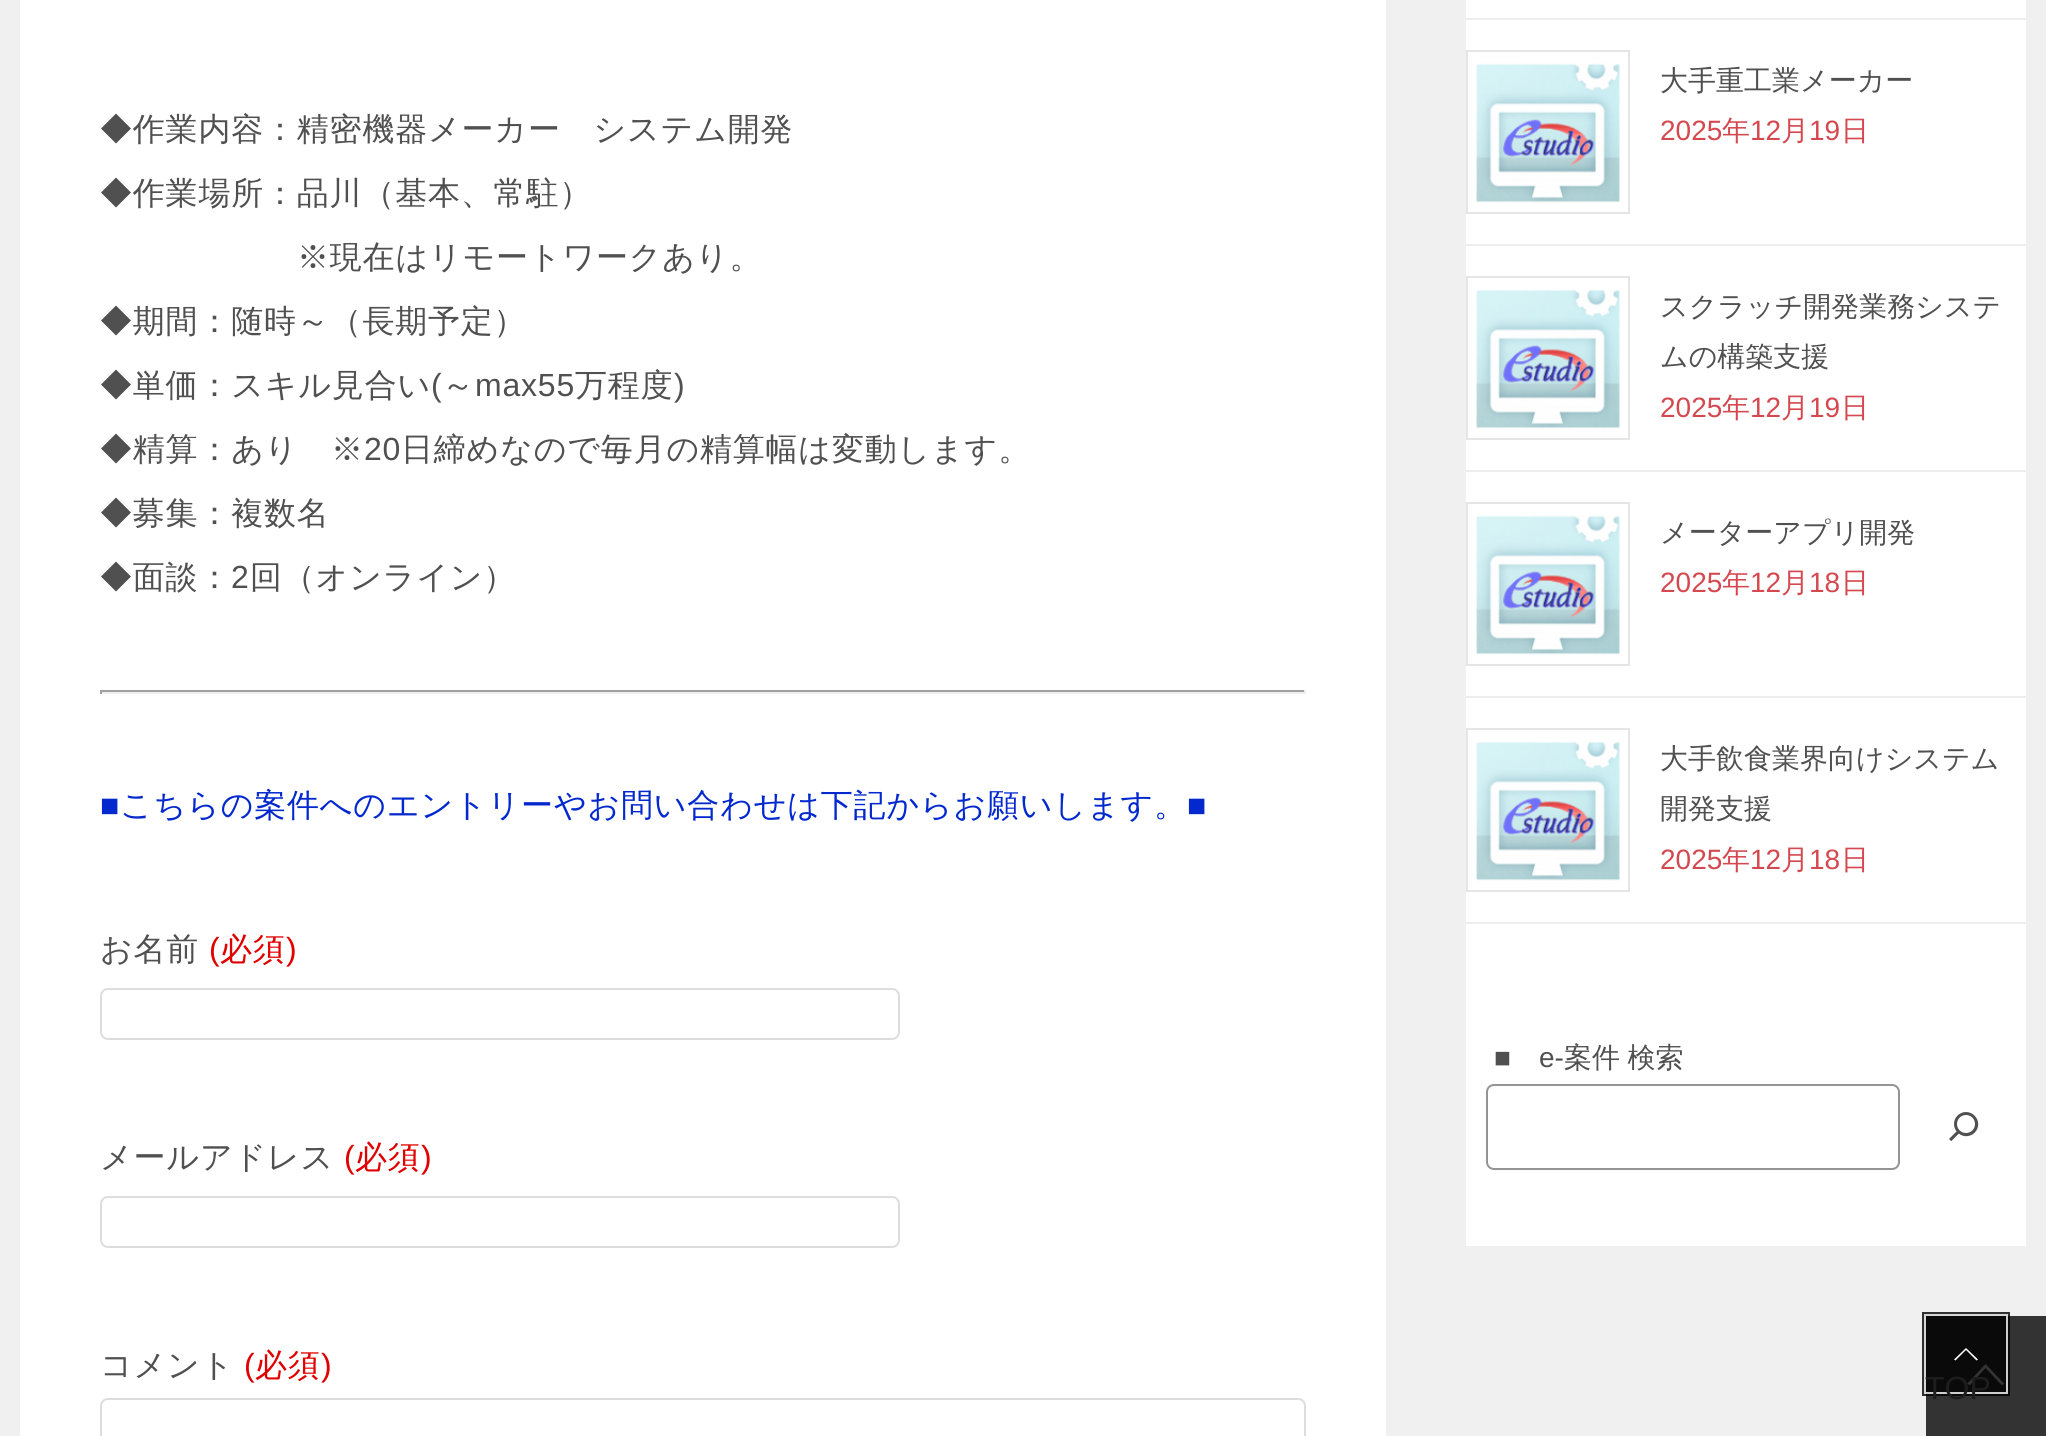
#include <cairo/cairo.h>
#include <math.h>
#include <stddef.h>

static cairo_t *cr;

static void use_color(int r, int g, int b) {
  cairo_set_source_rgb(cr, r / 255.0, g / 255.0, b / 255.0);
}

static void text(double x, double y, const char *s, const char *family, double size, int italic, int bold, int r, int g, int b) {
  cairo_select_font_face(cr, family, italic ? CAIRO_FONT_SLANT_ITALIC : CAIRO_FONT_SLANT_NORMAL,
    bold ? CAIRO_FONT_WEIGHT_BOLD : CAIRO_FONT_WEIGHT_NORMAL);
  cairo_set_font_size(cr, size);
  use_color(r, g, b);
  cairo_move_to(cr, x, y);
  cairo_show_text(cr, s);
}

static void spaced_text(double x, double y, const char *s, double letter, double word) {
  cairo_move_to(cr, x, y);
  while (*s) {
    char ch[5] = {0};
    int n = 0;
    do ch[n++] = *s++; while ((*s & 0xC0) == 0x80);
    cairo_show_text(cr, ch);
    cairo_rel_move_to(cr, letter + word * (*ch == ' '), 0);
  }
}

static void box(double x, double y, double w, double h, int r, int g, int b) {
  use_color(r, g, b);
  cairo_rectangle(cr, x, y, w, h);
  cairo_fill(cr);
}

static void round_rect(double x, double y, double w, double h, double r) {
  cairo_new_sub_path(cr);
  cairo_arc(cr, x + w - r, y + h - r, r, 0, M_PI / 2);
  cairo_arc(cr, x + r, y + h - r, r, M_PI / 2, M_PI);
  cairo_arc(cr, x + r, y + r, r, M_PI, 1.5 * M_PI);
  cairo_arc(cr, x + w - r, y + r, r, 1.5 * M_PI, 2 * M_PI);
  cairo_close_path(cr);
}

static void picture(const char *path, double x, double y, double w, double h) {
  cairo_surface_t *image = cairo_image_surface_create_from_png(path);
  cairo_save(cr);
  cairo_set_source_surface(cr, image, x, y);
  cairo_rectangle(cr, x, y, w, h);
  cairo_fill(cr);
  cairo_restore(cr);
  cairo_surface_destroy(image);
}

static void draw(void) {
  use_color(240, 240, 240);
  cairo_paint(cr);
  box(20, 0, 1366, 1436, 255, 255, 255);
  box(100, 690, 1206, 2, 159, 159, 159);
  box(1304, 690, 2, 4, 238, 238, 238);
  box(100, 692, 1206, 2, 238, 238, 238);
  box(100, 690, 2, 4, 159, 159, 159);
  round_rect(101, 989, 798, 50, 7);
  use_color(221, 221, 221);
  cairo_stroke(cr);
  round_rect(101, 1197, 798, 50, 7);
  cairo_stroke(cr);
  round_rect(101, 1399, 1204, 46, 7);
  cairo_stroke(cr);
  box(1466, 0, 560, 1246, 255, 255, 255);
  box(1466, 18, 560, 2, 237, 237, 237);
  box(1466, 244, 560, 2, 237, 237, 237);
  cairo_rectangle(cr, 1467, 51, 162, 162);
  use_color(229, 229, 229);
  cairo_stroke(cr);
  picture("img_01.png", 1476, 63, 144, 140);
  box(1466, 470, 560, 2, 237, 237, 237);
  cairo_rectangle(cr, 1467, 277, 162, 162);
  use_color(229, 229, 229);
  cairo_stroke(cr);
  picture("img_01.png", 1476, 289, 144, 140);
  box(1466, 696, 560, 2, 237, 237, 237);
  cairo_rectangle(cr, 1467, 503, 162, 162);
  use_color(229, 229, 229);
  cairo_stroke(cr);
  picture("img_01.png", 1476, 515, 144, 140);
  box(1466, 922, 560, 2, 237, 237, 237);
  cairo_rectangle(cr, 1467, 729, 162, 162);
  use_color(229, 229, 229);
  cairo_stroke(cr);
  picture("img_01.png", 1476, 741, 144, 140);
  round_rect(1487, 1085, 412, 84, 7);
  use_color(148, 148, 148);
  cairo_stroke(cr);
  picture("img_02.png", 1949, 1112, 30, 30);
  box(1926, 1316, 120, 120, 51, 51, 51);
  box(1926, 1316, 80, 76, 10, 10, 10);
  use_color(51, 51, 51);
  cairo_new_path(cr);
  cairo_move_to(cr, 1985.5, 1364);
  cairo_line_to(cr, 2004.5, 1384);
  cairo_line_to(cr, 2001.5, 1385);
  cairo_line_to(cr, 1985.5, 1368);
  cairo_line_to(cr, 1970, 1385);
  cairo_line_to(cr, 1967, 1384);
  cairo_close_path(cr);
  cairo_fill(cr);
  cairo_rectangle(cr, 1924, 1314, 84, 80);
  cairo_set_source_rgba(cr, 0, 0, 0, 0.8);
  cairo_set_line_width(cr, 4);
  cairo_stroke(cr);
  cairo_rectangle(cr, 1925, 1315, 82, 78);
  cairo_set_source_rgba(cr, 1, 1, 1, 0.8);
  cairo_set_line_width(cr, 2);
  cairo_stroke(cr);
  use_color(255, 255, 255);
  cairo_new_path(cr);
  cairo_move_to(cr, 1978, 1359.5);
  cairo_line_to(cr, 1976.5, 1360.5);
  cairo_line_to(cr, 1966, 1350);
  cairo_line_to(cr, 1955.5, 1360.5);
  cairo_line_to(cr, 1954, 1359.5);
  cairo_line_to(cr, 1966, 1348);
  cairo_close_path(cr);
  cairo_fill(cr);
  cairo_select_font_face(cr, "WenQuanYi Zen Hei Medium", CAIRO_FONT_SLANT_NORMAL, CAIRO_FONT_WEIGHT_NORMAL);
  cairo_set_font_size(cr, 32);
  use_color(80, 80, 80);
  spaced_text(100, 140, "◆作業内容：精密機器メーカー　システム開発", 0.8, 0);
  spaced_text(100, 204, "◆作業場所：品川（基本、常駐）", 0.8, 0);
  spaced_text(297, 268, "※現在はリモートワークあり。", 0.8, 0);
  spaced_text(100, 332, "◆期間：随時～（長期予定）", 0.8, 0);
  spaced_text(100, 396, "◆単価：スキル見合い", 0.8, 0);
  cairo_select_font_face(cr, "Liberation Sans", CAIRO_FONT_SLANT_NORMAL, CAIRO_FONT_WEIGHT_NORMAL);
  spaced_text(431, 396, "(", 0.8, 0);
  cairo_select_font_face(cr, "WenQuanYi Zen Hei Medium", CAIRO_FONT_SLANT_NORMAL, CAIRO_FONT_WEIGHT_NORMAL);
  spaced_text(442, 396, "～", 0.8, 0);
  cairo_select_font_face(cr, "Liberation Sans", CAIRO_FONT_SLANT_NORMAL, CAIRO_FONT_WEIGHT_NORMAL);
  spaced_text(475, 396, "max55", 0.8, 0);
  cairo_select_font_face(cr, "WenQuanYi Zen Hei Medium", CAIRO_FONT_SLANT_NORMAL, CAIRO_FONT_WEIGHT_NORMAL);
  spaced_text(575, 396, "万程度", 0.8, 0);
  cairo_select_font_face(cr, "Liberation Sans", CAIRO_FONT_SLANT_NORMAL, CAIRO_FONT_WEIGHT_NORMAL);
  spaced_text(674, 396, ")", 0.8, 0);
  cairo_select_font_face(cr, "WenQuanYi Zen Hei Medium", CAIRO_FONT_SLANT_NORMAL, CAIRO_FONT_WEIGHT_NORMAL);
  spaced_text(100, 460, "◆精算：あり　※", 0.8, 0);
  cairo_select_font_face(cr, "Liberation Sans", CAIRO_FONT_SLANT_NORMAL, CAIRO_FONT_WEIGHT_NORMAL);
  spaced_text(364, 460, "20", 0.8, 0);
  cairo_select_font_face(cr, "WenQuanYi Zen Hei Medium", CAIRO_FONT_SLANT_NORMAL, CAIRO_FONT_WEIGHT_NORMAL);
  spaced_text(401, 460, "日締めなので毎月の精算幅は変動します。", 0.8, 0);
  spaced_text(100, 524, "◆募集：複数名", 0.8, 0);
  spaced_text(100, 588, "◆面談：", 0.8, 0);
  cairo_select_font_face(cr, "Liberation Sans", CAIRO_FONT_SLANT_NORMAL, CAIRO_FONT_WEIGHT_NORMAL);
  spaced_text(231, 588, "2", 0.8, 0);
  cairo_select_font_face(cr, "WenQuanYi Zen Hei Medium", CAIRO_FONT_SLANT_NORMAL, CAIRO_FONT_WEIGHT_NORMAL);
  spaced_text(250, 588, "回（オンライン）", 0.8, 0);
  cairo_select_font_face(cr, "Liberation Sans", CAIRO_FONT_SLANT_NORMAL, CAIRO_FONT_WEIGHT_NORMAL);
  use_color(3, 41, 206);
  spaced_text(100, 816, "■", 0.8, 0);
  cairo_select_font_face(cr, "WenQuanYi Zen Hei Medium", CAIRO_FONT_SLANT_NORMAL, CAIRO_FONT_WEIGHT_NORMAL);
  spaced_text(120, 816, "こちらの案件へのエントリーやお問い合わせは下記からお願いします。", 0.8, 0);
  cairo_select_font_face(cr, "Liberation Sans", CAIRO_FONT_SLANT_NORMAL, CAIRO_FONT_WEIGHT_NORMAL);
  spaced_text(1187, 816, "■", 0.8, 0);
  cairo_select_font_face(cr, "WenQuanYi Zen Hei Medium", CAIRO_FONT_SLANT_NORMAL, CAIRO_FONT_WEIGHT_NORMAL);
  use_color(80, 80, 80);
  spaced_text(100, 960, "お名前", 0.8, 0);
  cairo_select_font_face(cr, "Liberation Sans", CAIRO_FONT_SLANT_NORMAL, CAIRO_FONT_WEIGHT_NORMAL);
  use_color(224, 0, 0);
  spaced_text(209, 960, "(", 0.8, 0);
  cairo_select_font_face(cr, "WenQuanYi Zen Hei Medium", CAIRO_FONT_SLANT_NORMAL, CAIRO_FONT_WEIGHT_NORMAL);
  spaced_text(220, 960, "必須", 0.8, 0);
  cairo_select_font_face(cr, "Liberation Sans", CAIRO_FONT_SLANT_NORMAL, CAIRO_FONT_WEIGHT_NORMAL);
  spaced_text(286, 960, ")", 0.8, 0);
  cairo_select_font_face(cr, "WenQuanYi Zen Hei Medium", CAIRO_FONT_SLANT_NORMAL, CAIRO_FONT_WEIGHT_NORMAL);
  use_color(80, 80, 80);
  spaced_text(100, 1168, "メールアドレス", 0.8, 0);
  cairo_select_font_face(cr, "Liberation Sans", CAIRO_FONT_SLANT_NORMAL, CAIRO_FONT_WEIGHT_NORMAL);
  use_color(224, 0, 0);
  spaced_text(344, 1168, "(", 0.8, 0);
  cairo_select_font_face(cr, "WenQuanYi Zen Hei Medium", CAIRO_FONT_SLANT_NORMAL, CAIRO_FONT_WEIGHT_NORMAL);
  spaced_text(355, 1168, "必須", 0.8, 0);
  cairo_select_font_face(cr, "Liberation Sans", CAIRO_FONT_SLANT_NORMAL, CAIRO_FONT_WEIGHT_NORMAL);
  spaced_text(421, 1168, ")", 0.8, 0);
  cairo_select_font_face(cr, "WenQuanYi Zen Hei Medium", CAIRO_FONT_SLANT_NORMAL, CAIRO_FONT_WEIGHT_NORMAL);
  use_color(80, 80, 80);
  spaced_text(100, 1376, "コメント", 0.8, 0);
  cairo_select_font_face(cr, "Liberation Sans", CAIRO_FONT_SLANT_NORMAL, CAIRO_FONT_WEIGHT_NORMAL);
  use_color(224, 0, 0);
  spaced_text(244, 1376, "(", 0.8, 0);
  cairo_select_font_face(cr, "WenQuanYi Zen Hei Medium", CAIRO_FONT_SLANT_NORMAL, CAIRO_FONT_WEIGHT_NORMAL);
  spaced_text(255, 1376, "必須", 0.8, 0);
  cairo_select_font_face(cr, "Liberation Sans", CAIRO_FONT_SLANT_NORMAL, CAIRO_FONT_WEIGHT_NORMAL);
  spaced_text(321, 1376, ")", 0.8, 0);
  text(1660, 90, "大手重工業メーカー", "WenQuanYi Zen Hei Medium", 28, 0, 0, 80, 80, 80);
  text(1660, 140, "2025", "Liberation Sans", 28, 0, 0, 212, 73, 80);
  text(1722, 140, "年", "WenQuanYi Zen Hei Medium", 28, 0, 0, 212, 73, 80);
  text(1750, 140, "12", "Liberation Sans", 28, 0, 0, 212, 73, 80);
  text(1781, 140, "月", "WenQuanYi Zen Hei Medium", 28, 0, 0, 212, 73, 80);
  text(1809, 140, "19", "Liberation Sans", 28, 0, 0, 212, 73, 80);
  text(1841, 140, "日", "WenQuanYi Zen Hei Medium", 28, 0, 0, 212, 73, 80);
  text(1660, 316, "スクラッチ開発業務システ", "WenQuanYi Zen Hei Medium", 28, 0, 0, 80, 80, 80);
  text(1660, 366, "ムの構築支援", "WenQuanYi Zen Hei Medium", 28, 0, 0, 80, 80, 80);
  text(1660, 417, "2025", "Liberation Sans", 28, 0, 0, 212, 73, 80);
  text(1722, 417, "年", "WenQuanYi Zen Hei Medium", 28, 0, 0, 212, 73, 80);
  text(1750, 417, "12", "Liberation Sans", 28, 0, 0, 212, 73, 80);
  text(1781, 417, "月", "WenQuanYi Zen Hei Medium", 28, 0, 0, 212, 73, 80);
  text(1809, 417, "19", "Liberation Sans", 28, 0, 0, 212, 73, 80);
  text(1841, 417, "日", "WenQuanYi Zen Hei Medium", 28, 0, 0, 212, 73, 80);
  text(1660, 542, "メーターアプリ開発", "WenQuanYi Zen Hei Medium", 28, 0, 0, 80, 80, 80);
  text(1660, 592, "2025", "Liberation Sans", 28, 0, 0, 212, 73, 80);
  text(1722, 592, "年", "WenQuanYi Zen Hei Medium", 28, 0, 0, 212, 73, 80);
  text(1750, 592, "12", "Liberation Sans", 28, 0, 0, 212, 73, 80);
  text(1781, 592, "月", "WenQuanYi Zen Hei Medium", 28, 0, 0, 212, 73, 80);
  text(1809, 592, "18", "Liberation Sans", 28, 0, 0, 212, 73, 80);
  text(1841, 592, "日", "WenQuanYi Zen Hei Medium", 28, 0, 0, 212, 73, 80);
  text(1660, 768, "大手飲食業界向けシステム", "WenQuanYi Zen Hei Medium", 28, 0, 0, 80, 80, 80);
  text(1660, 818, "開発支援", "WenQuanYi Zen Hei Medium", 28, 0, 0, 80, 80, 80);
  text(1660, 869, "2025", "Liberation Sans", 28, 0, 0, 212, 73, 80);
  text(1722, 869, "年", "WenQuanYi Zen Hei Medium", 28, 0, 0, 212, 73, 80);
  text(1750, 869, "12", "Liberation Sans", 28, 0, 0, 212, 73, 80);
  text(1781, 869, "月", "WenQuanYi Zen Hei Medium", 28, 0, 0, 212, 73, 80);
  text(1809, 869, "18", "Liberation Sans", 28, 0, 0, 212, 73, 80);
  text(1841, 869, "日", "WenQuanYi Zen Hei Medium", 28, 0, 0, 212, 73, 80);
  text(1494, 1067, "■", "Liberation Sans", 28, 0, 0, 80, 80, 80);
  text(1539, 1067, "e-", "Liberation Sans", 28, 0, 0, 80, 80, 80);
  cairo_select_font_face(cr, "WenQuanYi Zen Hei Medium", CAIRO_FONT_SLANT_NORMAL, CAIRO_FONT_WEIGHT_NORMAL);
  spaced_text(1564, 1067, "案件 検索", 0, -1);
  text(1925, 1399, "TOP", "Liberation Sans", 32, 0, 0, 29, 29, 29);
}

int main(void) {
  cairo_surface_t *surface = cairo_image_surface_create(CAIRO_FORMAT_RGB24, 2046, 1436);
  cr = cairo_create(surface);
  cairo_font_options_t *options = cairo_font_options_create();
  cairo_font_options_set_hint_metrics(options, CAIRO_HINT_METRICS_OFF);
  cairo_font_options_set_hint_style(options, CAIRO_HINT_STYLE_NONE);
  cairo_set_font_options(cr, options);
  cairo_set_miter_limit(cr, 4);
  draw();
  cairo_surface_write_to_png(surface, "out.png");
  cairo_font_options_destroy(options);
  cairo_destroy(cr);
  cairo_surface_destroy(surface);
  return 0;
}
